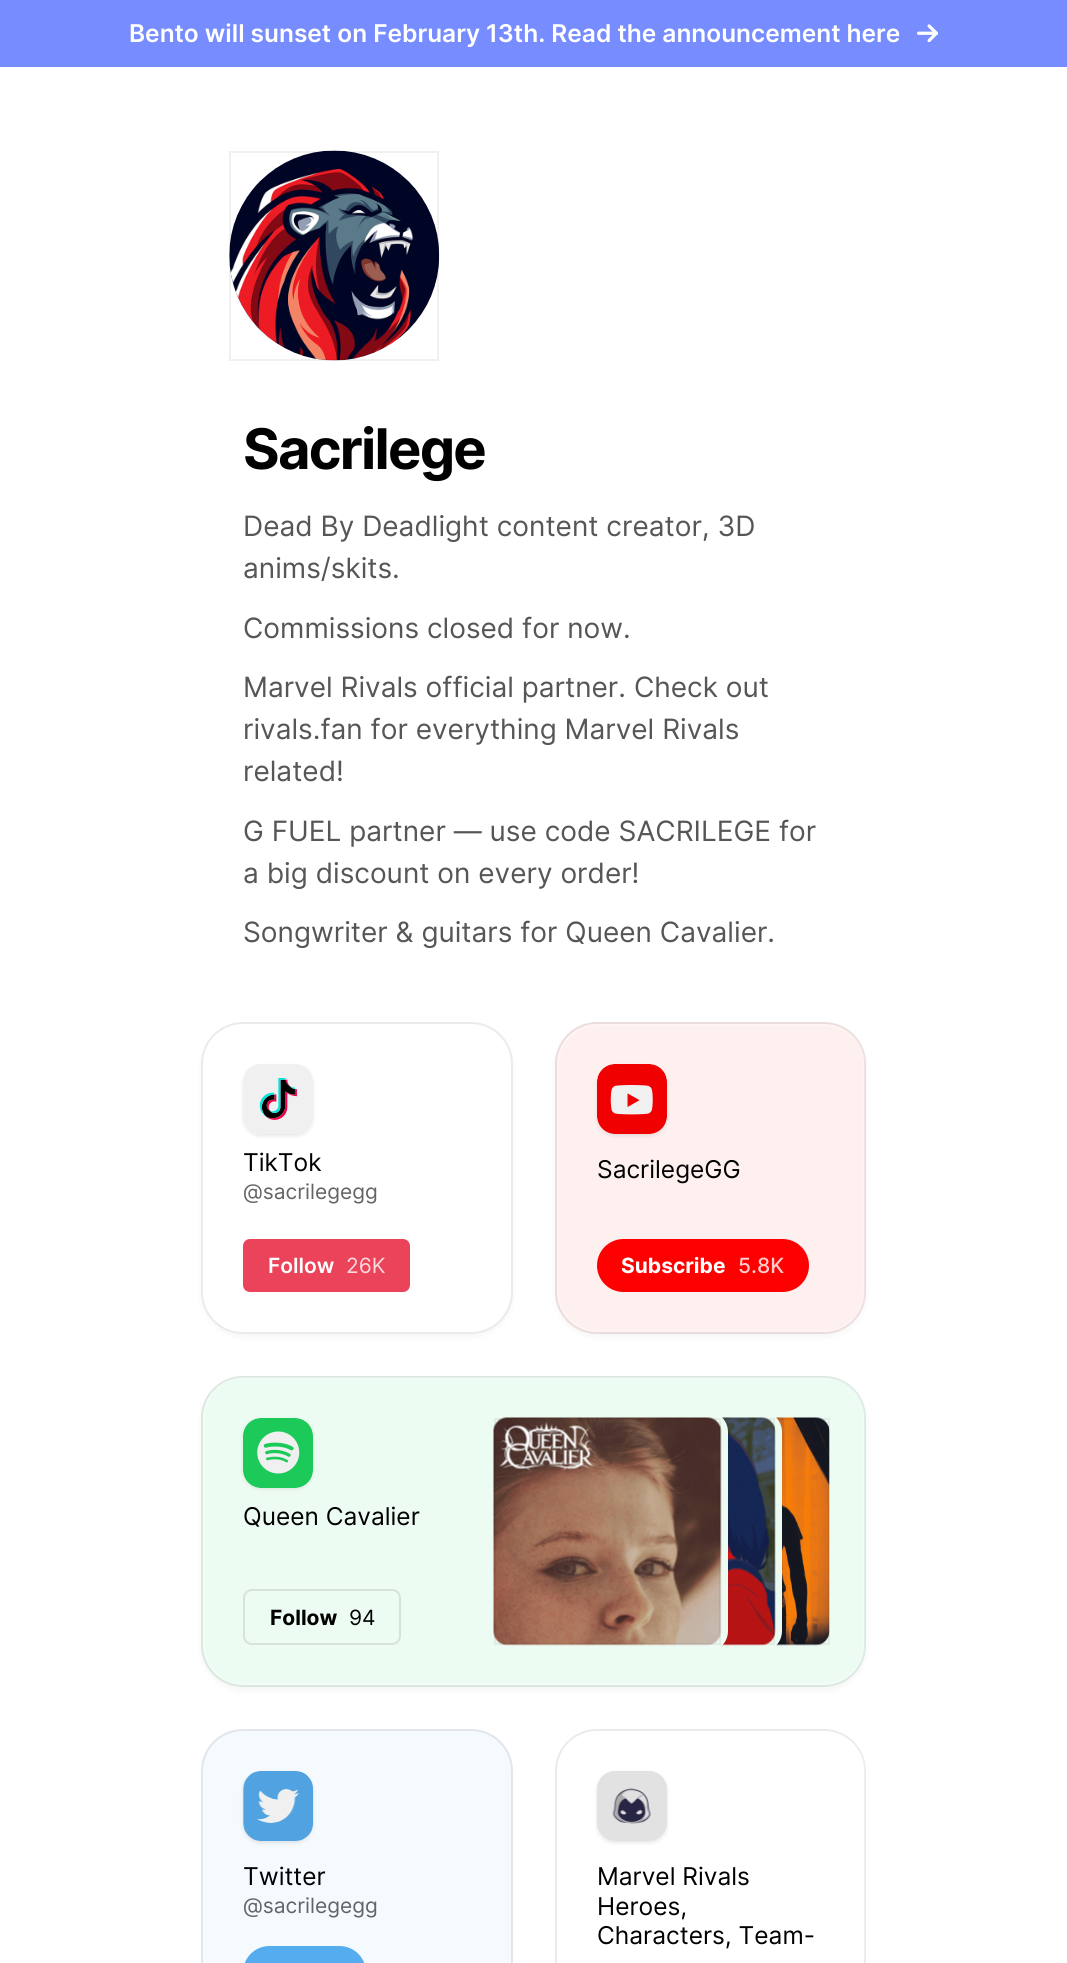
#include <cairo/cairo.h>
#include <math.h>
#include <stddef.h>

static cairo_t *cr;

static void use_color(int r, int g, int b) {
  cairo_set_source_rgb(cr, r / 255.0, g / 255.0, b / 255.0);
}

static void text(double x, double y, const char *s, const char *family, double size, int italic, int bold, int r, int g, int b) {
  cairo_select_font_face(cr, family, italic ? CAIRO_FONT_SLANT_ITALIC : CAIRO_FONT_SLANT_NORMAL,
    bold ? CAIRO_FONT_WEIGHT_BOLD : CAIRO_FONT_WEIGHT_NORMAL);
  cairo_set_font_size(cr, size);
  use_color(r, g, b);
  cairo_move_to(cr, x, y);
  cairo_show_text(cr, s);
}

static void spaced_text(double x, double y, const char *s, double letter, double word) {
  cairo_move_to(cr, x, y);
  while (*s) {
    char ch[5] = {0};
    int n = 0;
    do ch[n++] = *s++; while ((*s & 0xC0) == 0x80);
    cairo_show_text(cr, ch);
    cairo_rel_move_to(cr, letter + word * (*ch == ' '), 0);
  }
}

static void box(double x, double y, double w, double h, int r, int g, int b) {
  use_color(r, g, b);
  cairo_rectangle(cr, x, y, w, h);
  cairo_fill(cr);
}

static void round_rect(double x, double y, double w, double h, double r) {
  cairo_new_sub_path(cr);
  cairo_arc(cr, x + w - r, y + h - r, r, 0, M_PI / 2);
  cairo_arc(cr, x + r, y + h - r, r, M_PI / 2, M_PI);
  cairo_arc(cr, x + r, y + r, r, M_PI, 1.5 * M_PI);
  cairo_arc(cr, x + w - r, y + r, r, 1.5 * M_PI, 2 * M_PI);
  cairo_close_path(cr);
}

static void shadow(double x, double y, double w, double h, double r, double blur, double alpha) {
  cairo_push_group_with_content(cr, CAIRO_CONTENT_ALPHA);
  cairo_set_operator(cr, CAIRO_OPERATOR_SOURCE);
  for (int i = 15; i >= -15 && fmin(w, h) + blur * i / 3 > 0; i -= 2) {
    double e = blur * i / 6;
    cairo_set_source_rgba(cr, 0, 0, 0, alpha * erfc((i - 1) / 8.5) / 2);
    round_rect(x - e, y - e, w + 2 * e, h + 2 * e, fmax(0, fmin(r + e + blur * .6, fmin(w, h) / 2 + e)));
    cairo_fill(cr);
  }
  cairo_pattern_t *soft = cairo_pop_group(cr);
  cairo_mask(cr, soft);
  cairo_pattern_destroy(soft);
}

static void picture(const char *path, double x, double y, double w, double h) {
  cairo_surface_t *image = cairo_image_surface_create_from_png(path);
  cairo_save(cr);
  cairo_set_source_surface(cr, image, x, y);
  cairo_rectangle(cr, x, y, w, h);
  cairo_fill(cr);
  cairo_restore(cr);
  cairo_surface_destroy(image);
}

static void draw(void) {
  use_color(255, 255, 255);
  cairo_paint(cr);
  box(0, 0, 1067, 67, 118, 140, 255);
  picture("img_01.png", 917, 24, 21, 19);
  picture("img_02.png", 229, 150, 211, 211);
  cairo_rectangle(cr, 230, 152, 208, 208);
  cairo_set_source_rgba(cr, 0, 0, 0, 0.06);
  cairo_stroke(cr);
  use_color(0, 0, 0);
  shadow(201, 1026, 312, 311, 42, 3.5, 0.04);
  use_color(255, 255, 255);
  round_rect(201, 1022, 312, 312, 42);
  cairo_fill(cr);
  cairo_save(cr);
  cairo_set_fill_rule(cr, CAIRO_FILL_RULE_EVEN_ODD);
  cairo_new_path(cr);
  cairo_move_to(cr, 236, 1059);
  cairo_line_to(cr, 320, 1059);
  cairo_line_to(cr, 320, 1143);
  cairo_line_to(cr, 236, 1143);
  cairo_close_path(cr);
  cairo_move_to(cr, 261, 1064);
  cairo_line_to(cr, 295, 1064);
  cairo_curve_to(cr, 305, 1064, 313, 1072, 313, 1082);
  cairo_line_to(cr, 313, 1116);
  cairo_curve_to(cr, 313, 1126, 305, 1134, 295, 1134);
  cairo_line_to(cr, 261, 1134);
  cairo_curve_to(cr, 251, 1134, 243, 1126, 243, 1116);
  cairo_line_to(cr, 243, 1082);
  cairo_curve_to(cr, 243, 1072, 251, 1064, 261, 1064);
  cairo_close_path(cr);
  cairo_clip(cr);
  use_color(0, 0, 0);
  shadow(243, 1066, 70, 70, 18, 2, 0.1);
  cairo_restore(cr);
  picture("img_03.png", 259, 1078, 38, 42);
  cairo_set_source_rgba(cr, 0, 0, 0, 0.06);
  cairo_new_path(cr);
  cairo_move_to(cr, 261, 1064);
  cairo_line_to(cr, 295, 1064);
  cairo_curve_to(cr, 305, 1064, 313, 1072, 313, 1082);
  cairo_line_to(cr, 313, 1116);
  cairo_curve_to(cr, 313, 1126, 305, 1134, 295, 1134);
  cairo_line_to(cr, 261, 1134);
  cairo_curve_to(cr, 251, 1134, 243, 1126, 243, 1116);
  cairo_line_to(cr, 243, 1082);
  cairo_curve_to(cr, 243, 1072, 251, 1064, 261, 1064);
  cairo_close_path(cr);
  cairo_fill(cr);
  use_color(234, 67, 90);
  round_rect(243, 1239, 167, 53, 7);
  cairo_fill(cr);
  round_rect(202, 1023, 310, 310, 41);
  cairo_set_source_rgba(cr, 0, 0, 0, 0.08);
  cairo_stroke(cr);
  use_color(0, 0, 0);
  shadow(555, 1026, 311, 311, 42, 3.5, 0.04);
  use_color(255, 240, 240);
  round_rect(555, 1022, 311, 312, 42);
  cairo_fill(cr);
  use_color(0, 0, 0);
  shadow(597, 1066, 70, 70, 18, 2, 0.1);
  picture("img_04.png", 597, 1064, 70, 70);
  cairo_set_source_rgba(cr, 0, 0, 0, 0.06);
  cairo_new_path(cr);
  cairo_move_to(cr, 615, 1064);
  cairo_line_to(cr, 649, 1064);
  cairo_curve_to(cr, 659, 1064, 667, 1072, 667, 1082);
  cairo_line_to(cr, 667, 1116);
  cairo_curve_to(cr, 667, 1126, 659, 1134, 649, 1134);
  cairo_line_to(cr, 615, 1134);
  cairo_curve_to(cr, 605, 1134, 597, 1126, 597, 1116);
  cairo_line_to(cr, 597, 1082);
  cairo_curve_to(cr, 597, 1072, 605, 1064, 615, 1064);
  cairo_close_path(cr);
  cairo_fill(cr);
  use_color(255, 0, 0);
  round_rect(597, 1239, 212, 53, 26.5);
  cairo_fill(cr);
  round_rect(556, 1023, 309, 310, 41);
  cairo_set_source_rgba(cr, 0, 0, 0, 0.08);
  cairo_stroke(cr);
  round_rect(558, 1025, 306, 306, 39);
  cairo_set_source_rgba(cr, 1, 1, 1, 0.22);
  cairo_stroke(cr);
  use_color(0, 0, 0);
  shadow(201, 1379, 665, 312, 42, 3.5, 0.04);
  use_color(237, 252, 243);
  round_rect(201, 1376, 665, 311, 42);
  cairo_fill(cr);
  use_color(0, 0, 0);
  shadow(243, 1419, 70, 70, 18, 2, 0.1);
  picture("img_05.png", 243, 1418, 70, 70);
  cairo_set_source_rgba(cr, 0, 0, 0, 0.06);
  cairo_new_path(cr);
  cairo_move_to(cr, 261, 1418);
  cairo_line_to(cr, 295, 1418);
  cairo_curve_to(cr, 305, 1418, 313, 1426, 313, 1436);
  cairo_line_to(cr, 313, 1470);
  cairo_curve_to(cr, 313, 1480, 305, 1488, 295, 1488);
  cairo_line_to(cr, 261, 1488);
  cairo_curve_to(cr, 251, 1488, 243, 1480, 243, 1470);
  cairo_line_to(cr, 243, 1436);
  cairo_curve_to(cr, 243, 1426, 251, 1418, 261, 1418);
  cairo_close_path(cr);
  cairo_fill(cr);
  round_rect(244, 1590, 156, 54, 8);
  use_color(213, 227, 219);
  cairo_stroke(cr);
  round_rect(202, 1377, 663, 309, 41);
  cairo_set_source_rgba(cr, 0, 0, 0, 0.08);
  cairo_stroke(cr);
  round_rect(204, 1378, 660, 306, 39);
  cairo_set_source_rgba(cr, 1, 1, 1, 0.22);
  cairo_stroke(cr);
  use_color(255, 255, 255);
  round_rect(598.5, 1414.5, 235, 234, 17.5);
  cairo_fill_preserve(cr);
  use_color(237, 252, 243);
  cairo_set_line_width(cr, 7);
  cairo_stroke(cr);
  picture("img_08.png", 761, 1417, 69, 229);
  cairo_rectangle(cr, 603, 1419, 226, 225);
  cairo_set_source_rgba(cr, 0, 0, 0, 0.06);
  cairo_set_line_width(cr, 2);
  cairo_stroke(cr);
  use_color(255, 255, 255);
  round_rect(544.5, 1414.5, 234, 234, 17.5);
  cairo_fill_preserve(cr);
  use_color(237, 252, 243);
  cairo_set_line_width(cr, 7);
  cairo_stroke(cr);
  picture("img_07.png", 707, 1417, 69, 229);
  cairo_rectangle(cr, 549, 1419, 225, 225);
  cairo_set_source_rgba(cr, 0, 0, 0, 0.06);
  cairo_set_line_width(cr, 2);
  cairo_stroke(cr);
  use_color(255, 255, 255);
  round_rect(490.5, 1414.5, 234, 234, 17.5);
  cairo_fill_preserve(cr);
  use_color(237, 252, 243);
  cairo_set_line_width(cr, 7);
  cairo_stroke(cr);
  picture("img_06.png", 493, 1417, 229, 229);
  cairo_rectangle(cr, 495, 1419, 225, 225);
  cairo_set_source_rgba(cr, 0, 0, 0, 0.06);
  cairo_set_line_width(cr, 2);
  cairo_stroke(cr);
  use_color(245, 250, 254);
  round_rect(201, 1729, 312, 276, 42);
  cairo_fill(cr);
  use_color(0, 0, 0);
  shadow(243, 1773, 70, 70, 18, 2, 0.1);
  picture("img_09.png", 243, 1771, 71, 70);
  cairo_set_source_rgba(cr, 0, 0, 0, 0.06);
  cairo_new_path(cr);
  cairo_move_to(cr, 261, 1771);
  cairo_line_to(cr, 295, 1771);
  cairo_curve_to(cr, 305, 1771, 313, 1779, 313, 1789);
  cairo_line_to(cr, 313, 1823);
  cairo_curve_to(cr, 313, 1833, 305, 1841, 295, 1841);
  cairo_line_to(cr, 261, 1841);
  cairo_curve_to(cr, 251, 1841, 243, 1833, 243, 1823);
  cairo_line_to(cr, 243, 1789);
  cairo_curve_to(cr, 243, 1779, 251, 1771, 261, 1771);
  cairo_close_path(cr);
  cairo_fill(cr);
  use_color(85, 172, 238);
  round_rect(243, 1946, 123, 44, 26.5);
  cairo_fill(cr);
  round_rect(202, 1730, 310, 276, 41);
  cairo_set_source_rgba(cr, 0, 0, 0, 0.08);
  cairo_stroke(cr);
  cairo_save(cr);
  cairo_set_fill_rule(cr, CAIRO_FILL_RULE_EVEN_ODD);
  cairo_new_path(cr);
  cairo_move_to(cr, 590, 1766);
  cairo_line_to(cr, 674, 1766);
  cairo_line_to(cr, 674, 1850);
  cairo_line_to(cr, 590, 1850);
  cairo_close_path(cr);
  cairo_move_to(cr, 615, 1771);
  cairo_line_to(cr, 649, 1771);
  cairo_curve_to(cr, 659, 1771, 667, 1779, 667, 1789);
  cairo_line_to(cr, 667, 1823);
  cairo_curve_to(cr, 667, 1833, 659, 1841, 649, 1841);
  cairo_line_to(cr, 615, 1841);
  cairo_curve_to(cr, 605, 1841, 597, 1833, 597, 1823);
  cairo_line_to(cr, 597, 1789);
  cairo_curve_to(cr, 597, 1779, 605, 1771, 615, 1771);
  cairo_close_path(cr);
  cairo_clip(cr);
  use_color(0, 0, 0);
  shadow(597, 1773, 70, 70, 18, 2, 0.1);
  cairo_restore(cr);
  picture("img_10.png", 612, 1788, 39, 36);
  cairo_set_source_rgba(cr, 0, 0, 0, 0.06);
  cairo_new_path(cr);
  cairo_move_to(cr, 615, 1771);
  cairo_line_to(cr, 649, 1771);
  cairo_curve_to(cr, 659, 1771, 667, 1779, 667, 1789);
  cairo_line_to(cr, 667, 1823);
  cairo_curve_to(cr, 667, 1833, 659, 1841, 649, 1841);
  cairo_line_to(cr, 615, 1841);
  cairo_curve_to(cr, 605, 1841, 597, 1833, 597, 1823);
  cairo_line_to(cr, 597, 1789);
  cairo_curve_to(cr, 597, 1779, 605, 1771, 615, 1771);
  cairo_close_path(cr);
  cairo_fill(cr);
  cairo_new_path(cr);
  cairo_move_to(cr, 615, 1771);
  cairo_line_to(cr, 649, 1771);
  cairo_curve_to(cr, 659, 1771, 667, 1779, 667, 1789);
  cairo_line_to(cr, 667, 1823);
  cairo_curve_to(cr, 667, 1833, 659, 1841, 649, 1841);
  cairo_line_to(cr, 615, 1841);
  cairo_curve_to(cr, 605, 1841, 597, 1833, 597, 1823);
  cairo_line_to(cr, 597, 1789);
  cairo_curve_to(cr, 597, 1779, 605, 1771, 615, 1771);
  cairo_close_path(cr);
  cairo_fill(cr);
  round_rect(556, 1730, 309, 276, 41);
  use_color(235, 235, 235);
  cairo_stroke(cr);
  round_rect(558, 1732, 306, 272, 39);
  cairo_set_source_rgba(cr, 1, 1, 1, 0.22);
  cairo_stroke(cr);
  text(129, 42, "Bento will sunset on February 13th. Read the announcement here", "Inter SemiBold", 24.5, 0, 0, 255, 255, 255);
  cairo_select_font_face(cr, "Inter", CAIRO_FONT_SLANT_NORMAL, CAIRO_FONT_WEIGHT_BOLD);
  cairo_set_font_size(cr, 56);
  use_color(0, 0, 0);
  spaced_text(243, 469, "Sacrilege", -1.75, 0);
  text(243, 536, "Dead By Deadlight content creator, 3D", "Inter", 28, 0, 0, 86, 86, 86);
  text(243, 578, "anims/skits.", "Inter", 28, 0, 0, 86, 86, 86);
  text(243, 638, "Commissions closed for now.", "Inter", 28, 0, 0, 86, 86, 86);
  text(243, 697, "Marvel Rivals official partner. Check out", "Inter", 28, 0, 0, 86, 86, 86);
  text(243, 739, "rivals.fan for everything Marvel Rivals", "Inter", 28, 0, 0, 86, 86, 86);
  text(243, 781, "related!", "Inter", 28, 0, 0, 86, 86, 86);
  text(243, 841, "G FUEL partner — use code SACRILEGE for", "Inter", 28, 0, 0, 86, 86, 86);
  text(243, 883, "a big discount on every order!", "Inter", 28, 0, 0, 86, 86, 86);
  text(243, 942, "Songwriter & guitars for Queen Cavalier.", "Inter", 28, 0, 0, 86, 86, 86);
  text(243, 1171, "TikTok", "Inter", 24.5, 0, 0, 0, 0, 0);
  text(243, 1199, "@sacrilegegg", "Inter", 21, 0, 0, 98, 100, 102);
  text(268, 1273, "Follow", "Inter SemiBold", 21, 0, 0, 255, 255, 255);
  text(346, 1273, "26K", "Inter", 21, 0, 0, 251, 217, 222);
  text(597, 1178, "SacrilegeGG", "Inter", 24.5, 0, 0, 0, 0, 0);
  text(621, 1273, "Subscribe", "Inter", 21, 0, 1, 255, 255, 255);
  text(738, 1273, "5.8K", "Inter Medium", 21, 0, 0, 255, 204, 204);
  text(243, 1525, "Queen Cavalier", "Inter", 24.5, 0, 0, 0, 0, 0);
  text(270, 1625, "Follow", "Inter", 21, 0, 1, 0, 0, 0);
  text(349, 1625, "94", "Inter", 21, 0, 0, 0, 0, 0);
  text(243, 1885, "Twitter", "Inter", 24.5, 0, 0, 0, 0, 0);
  text(243, 1913, "@sacrilegegg", "Inter", 21, 0, 0, 98, 100, 102);
  text(597, 1885, "Marvel Rivals", "Inter", 24.5, 0, 0, 0, 0, 0);
  text(597, 1915, "Heroes,", "Inter", 24.5, 0, 0, 0, 0, 0);
  text(597, 1944, "Characters, Team-", "Inter", 24.5, 0, 0, 0, 0, 0);
}

int main(void) {
  cairo_surface_t *surface = cairo_image_surface_create(CAIRO_FORMAT_RGB24, 1067, 1963);
  cr = cairo_create(surface);
  cairo_font_options_t *options = cairo_font_options_create();
  cairo_font_options_set_hint_metrics(options, CAIRO_HINT_METRICS_OFF);
  cairo_font_options_set_hint_style(options, CAIRO_HINT_STYLE_NONE);
  cairo_set_font_options(cr, options);
  cairo_set_miter_limit(cr, 4);
  draw();
  cairo_surface_write_to_png(surface, "out.png");
  cairo_font_options_destroy(options);
  cairo_destroy(cr);
  cairo_surface_destroy(surface);
  return 0;
}
